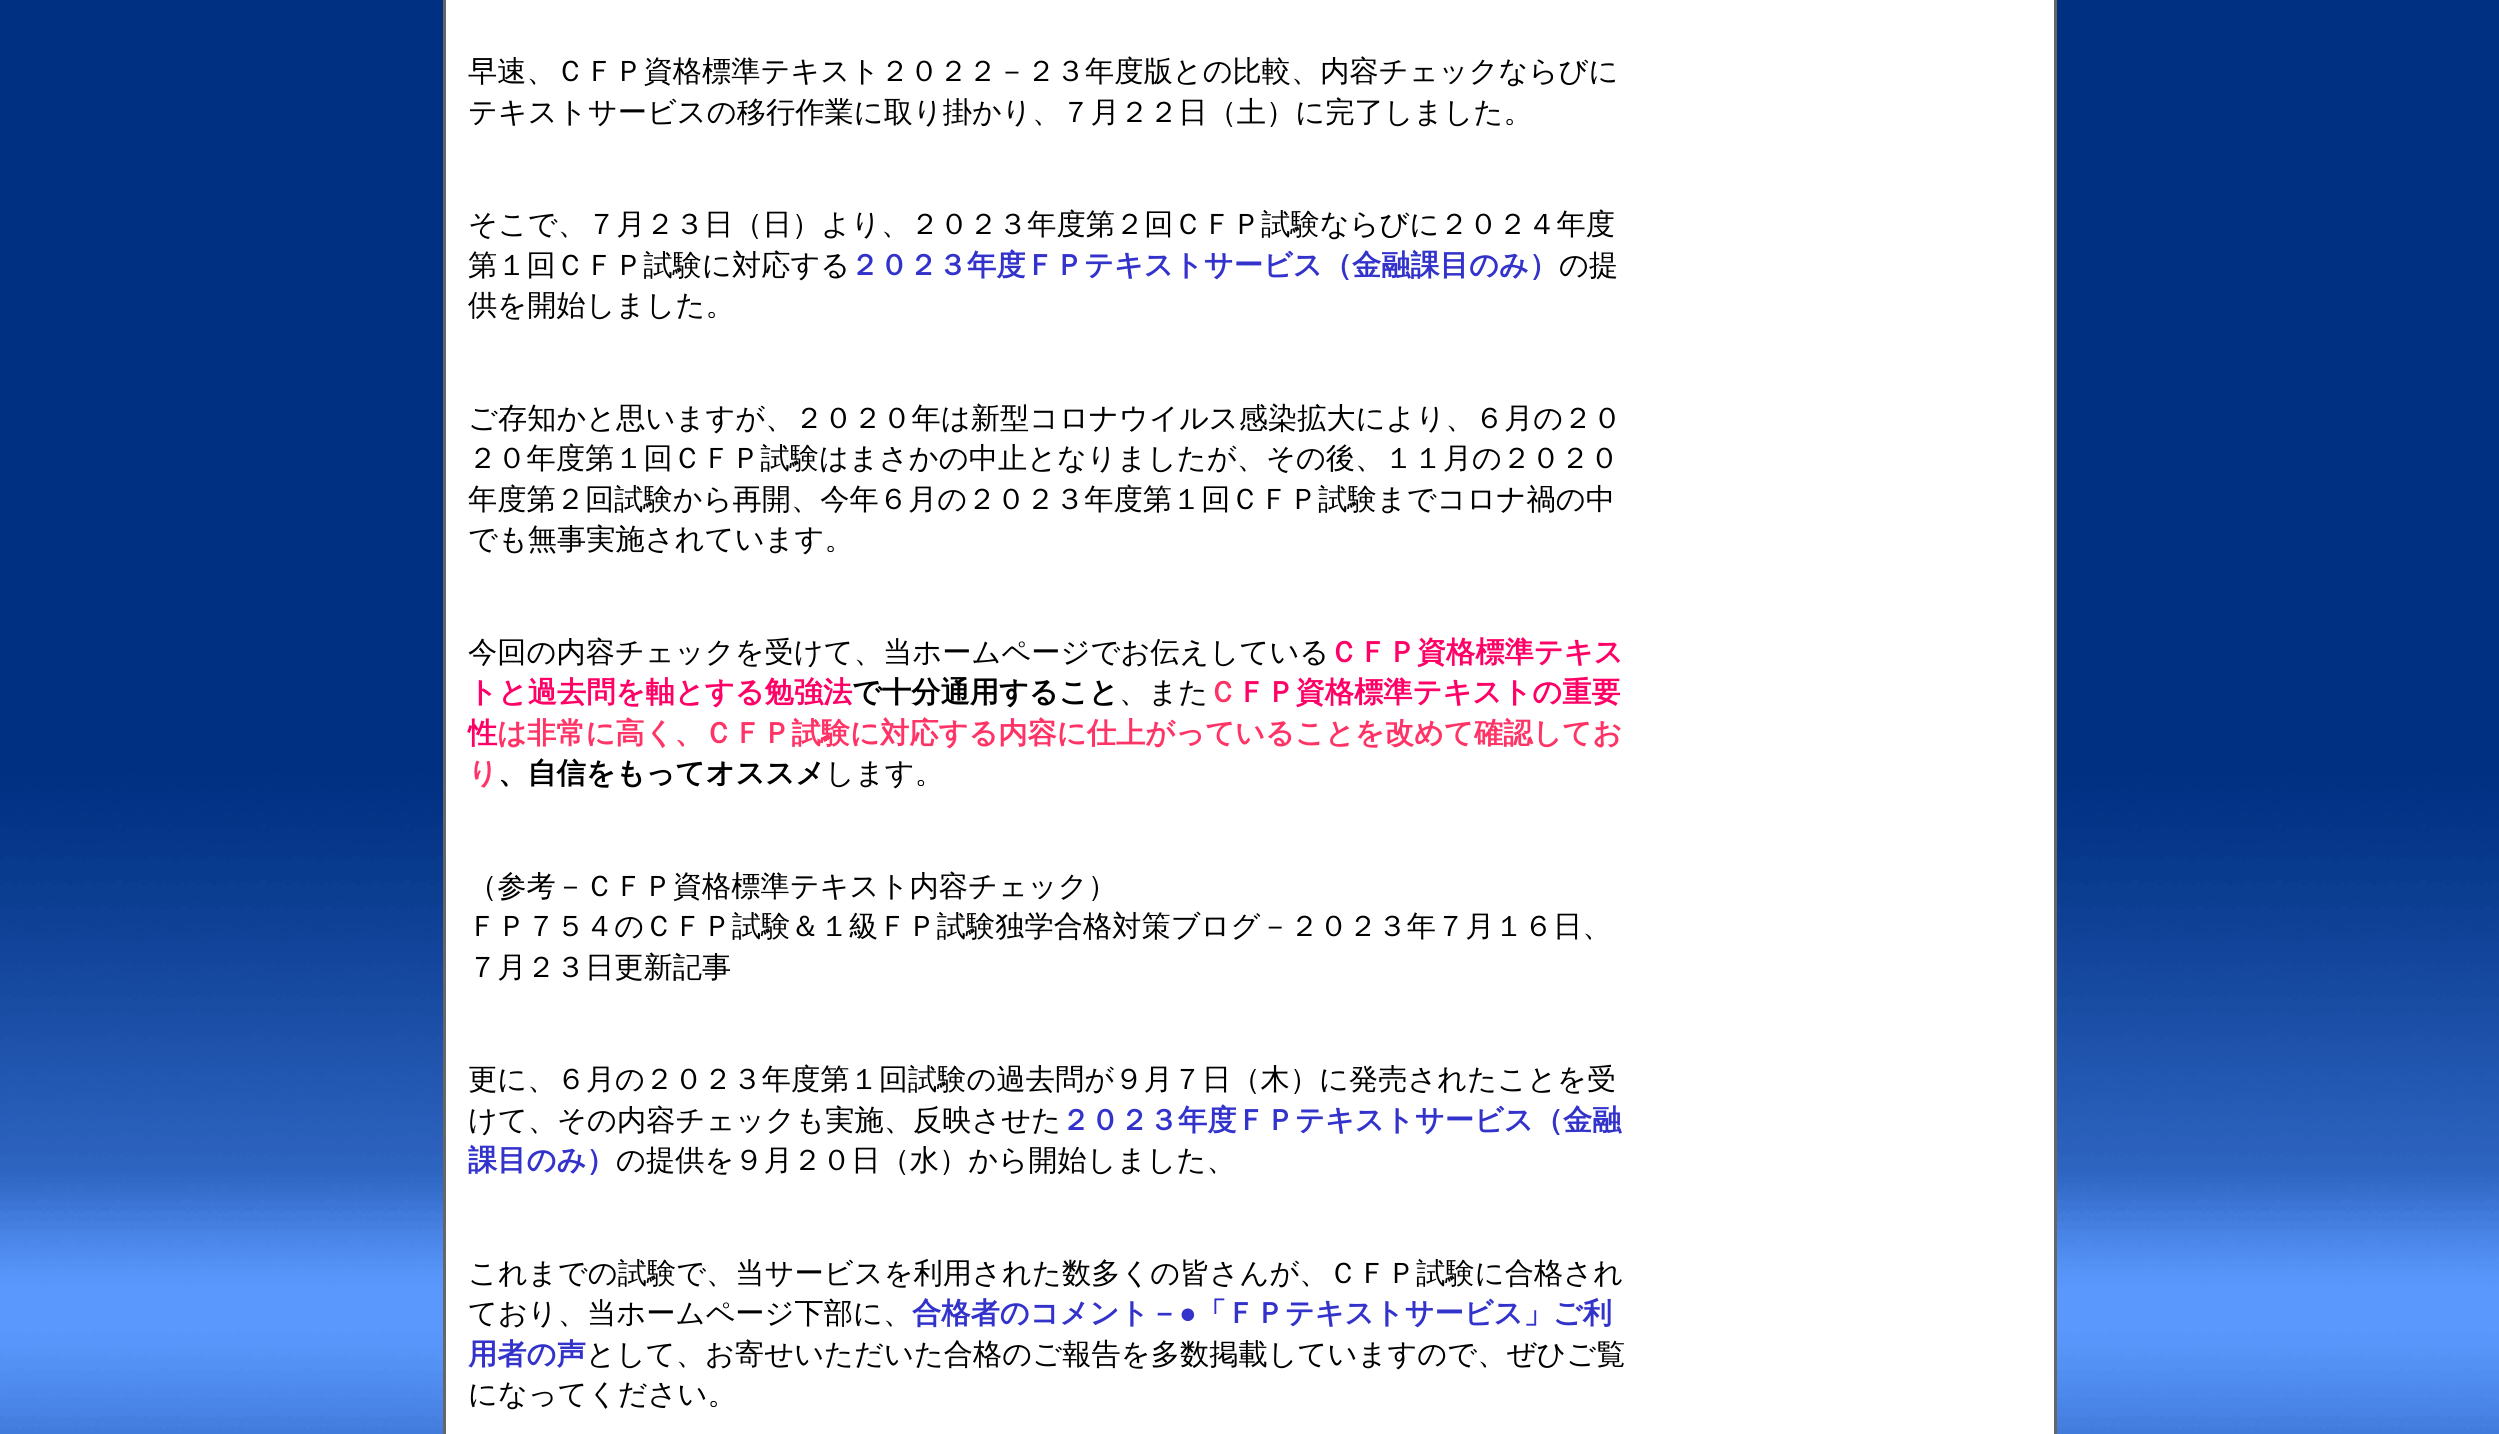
#include <cairo/cairo.h>
#include <math.h>
#include <stddef.h>

static cairo_t *cr;

static void use_color(int r, int g, int b) {
  cairo_set_source_rgb(cr, r / 255.0, g / 255.0, b / 255.0);
}

static void text(double x, double y, const char *s, const char *family, double size, int italic, int bold, int r, int g, int b) {
  cairo_select_font_face(cr, family, italic ? CAIRO_FONT_SLANT_ITALIC : CAIRO_FONT_SLANT_NORMAL,
    bold ? CAIRO_FONT_WEIGHT_BOLD : CAIRO_FONT_WEIGHT_NORMAL);
  cairo_set_font_size(cr, size);
  use_color(r, g, b);
  cairo_move_to(cr, x, y);
  cairo_show_text(cr, s);
}

static void box(double x, double y, double w, double h, int r, int g, int b) {
  use_color(r, g, b);
  cairo_rectangle(cr, x, y, w, h);
  cairo_fill(cr);
}

static void picture(const char *path, double x, double y, double w, double h) {
  cairo_surface_t *image = cairo_image_surface_create_from_png(path);
  cairo_save(cr);
  cairo_set_source_surface(cr, image, x, y);
  cairo_rectangle(cr, x, y, w, h);
  cairo_fill(cr);
  cairo_restore(cr);
  cairo_surface_destroy(image);
}

static void draw(void) {
  use_color(255, 255, 255);
  cairo_paint(cr);
  picture("img_01.png", 0, 0, 2499, 1434);
  box(443, 0, 1614, 1434, 102, 102, 102);
  box(446, 0, 1608, 1434, 255, 255, 255);
  text(468, 81, "早速、ＣＦＰ資格標準テキスト２０２２－２３年度版との比較、内容チェックならびに", "WenQuanYi Zen Hei Medium", 29.25, 0, 0, 0, 0, 0);
  text(468, 122, "テキストサービスの移行作業に取り掛かり、７月２２日（土）に完了しました。", "WenQuanYi Zen Hei Medium", 29.25, 0, 0, 0, 0, 0);
  text(468, 234, "そこで、７月２３日（日）より、２０２３年度第２回ＣＦＰ試験ならびに２０２４年度", "WenQuanYi Zen Hei Medium", 29.25, 0, 0, 0, 0, 0);
  text(468, 275, "第１回ＣＦＰ試験に対応する", "WenQuanYi Zen Hei Medium", 29.25, 0, 0, 0, 0, 0);
  text(850, 275, "２０２３年度ＦＰテキストサービス（金融課目のみ）", "WenQuanYi Zen Hei", 29.25, 0, 1, 51, 51, 204);
  text(1559, 275, "の提", "WenQuanYi Zen Hei Medium", 29.25, 0, 0, 0, 0, 0);
  text(468, 315, "供を開始しました。", "WenQuanYi Zen Hei Medium", 29.25, 0, 0, 0, 0, 0);
  text(468, 428, "ご存知かと思いますが、２０２０年は新型コロナウイルス感染拡大により、６月の２０", "WenQuanYi Zen Hei Medium", 29.25, 0, 0, 0, 0, 0);
  text(468, 468, "２０年度第１回ＣＦＰ試験はまさかの中止となりましたが、その後、１１月の２０２０", "WenQuanYi Zen Hei Medium", 29.25, 0, 0, 0, 0, 0);
  text(468, 509, "年度第２回試験から再開、今年６月の２０２３年度第１回ＣＦＰ試験までコロナ禍の中", "WenQuanYi Zen Hei Medium", 29.25, 0, 0, 0, 0, 0);
  text(468, 549, "でも無事実施されています。", "WenQuanYi Zen Hei Medium", 29.25, 0, 0, 0, 0, 0);
  text(468, 662, "今回の内容チェックを受けて、当ホームページでお伝えしている", "WenQuanYi Zen Hei Medium", 29.25, 0, 0, 0, 0, 0);
  text(1329, 662, "ＣＦＰ資格標準テキス", "WenQuanYi Zen Hei", 29.25, 0, 1, 255, 0, 102);
  text(468, 702, "トと過去問を軸とする勉強法", "WenQuanYi Zen Hei", 29.25, 0, 1, 255, 0, 102);
  text(852, 702, "で十分通用すること", "WenQuanYi Zen Hei", 29.25, 0, 1, 0, 0, 0);
  text(1119, 702, "、また", "WenQuanYi Zen Hei Medium", 29.25, 0, 0, 0, 0, 0);
  text(1208, 702, "Ｃ", "WenQuanYi Zen Hei", 29.25, 0, 1, 255, 51, 102);
  text(1237, 702, "ＦＰ資格標準テキストの重要", "WenQuanYi Zen Hei", 29.25, 0, 1, 255, 0, 102);
  text(468, 743, "性", "WenQuanYi Zen Hei", 29.25, 0, 1, 255, 0, 102);
  text(497, 743, "は非常に高く、ＣＦＰ試験に対応する内容に仕上がっていることを改めて確認してお", "WenQuanYi Zen Hei", 29.25, 0, 1, 255, 51, 102);
  text(468, 783, "り", "WenQuanYi Zen Hei", 29.25, 0, 1, 255, 51, 102);
  text(498, 783, "、自信をもってオススメ", "WenQuanYi Zen Hei", 29.25, 0, 1, 0, 0, 0);
  text(825, 783, "します。", "WenQuanYi Zen Hei Medium", 29.25, 0, 0, 0, 0, 0);
  text(468, 896, "（参考－ＣＦＰ資格標準テキスト内容チェック）", "WenQuanYi Zen Hei Medium", 29.25, 0, 0, 0, 0, 0);
  text(468, 936, "ＦＰ７５４のＣＦＰ試験＆１級ＦＰ試験独学合格対策ブログ－２０２３年７月１６日、", "WenQuanYi Zen Hei Medium", 29.25, 0, 0, 0, 0, 0);
  text(468, 977, "７月２３日更新記事", "WenQuanYi Zen Hei Medium", 29.25, 0, 0, 0, 0, 0);
  text(468, 1089, "更に、６月の２０２３年度第１回試験の過去問が９月７日（木）に発売されたことを受", "WenQuanYi Zen Hei Medium", 29.25, 0, 0, 0, 0, 0);
  text(468, 1130, "けて、その内容チェックも実施、反映させた", "WenQuanYi Zen Hei Medium", 29.25, 0, 0, 0, 0, 0);
  text(1061, 1130, "２０２３年度ＦＰテキストサービス（金融", "WenQuanYi Zen Hei", 29.25, 0, 1, 51, 51, 204);
  text(468, 1170, "課目のみ）", "WenQuanYi Zen Hei", 29.25, 0, 1, 51, 51, 204);
  text(616, 1170, "の提供を９月２０日（水）から開始しました、", "WenQuanYi Zen Hei Medium", 29.25, 0, 0, 0, 0, 0);
  text(468, 1283, "これまでの試験で、当サービスを利用された数多くの皆さんが、ＣＦＰ試験に合格され", "WenQuanYi Zen Hei Medium", 29.25, 0, 0, 0, 0, 0);
  text(468, 1323, "ており、当ホームページ下部に、", "WenQuanYi Zen Hei Medium", 29.25, 0, 0, 0, 0, 0);
  text(912, 1323, "合格者のコメント－", "WenQuanYi Zen Hei", 29.25, 0, 1, 51, 51, 204);
  text(1179, 1323, "●", "Liberation Serif", 29.25, 0, 1, 51, 51, 204);
  text(1197, 1323, "「ＦＰテキストサービス」ご利", "WenQuanYi Zen Hei", 29.25, 0, 1, 51, 51, 204);
  text(468, 1364, "用者の声", "WenQuanYi Zen Hei", 29.25, 0, 1, 51, 51, 204);
  text(586, 1364, "として、お寄せいただいた合格のご報告を多数掲載していますので、ぜひご覧", "WenQuanYi Zen Hei Medium", 29.25, 0, 0, 0, 0, 0);
  text(468, 1404, "になってください。", "WenQuanYi Zen Hei Medium", 29.25, 0, 0, 0, 0, 0);
}

int main(void) {
  cairo_surface_t *surface = cairo_image_surface_create(CAIRO_FORMAT_RGB24, 2499, 1434);
  cr = cairo_create(surface);
  cairo_font_options_t *options = cairo_font_options_create();
  cairo_font_options_set_hint_metrics(options, CAIRO_HINT_METRICS_OFF);
  cairo_font_options_set_hint_style(options, CAIRO_HINT_STYLE_NONE);
  cairo_set_font_options(cr, options);
  cairo_set_miter_limit(cr, 4);
  draw();
  cairo_surface_write_to_png(surface, "out.png");
  cairo_font_options_destroy(options);
  cairo_destroy(cr);
  cairo_surface_destroy(surface);
  return 0;
}
